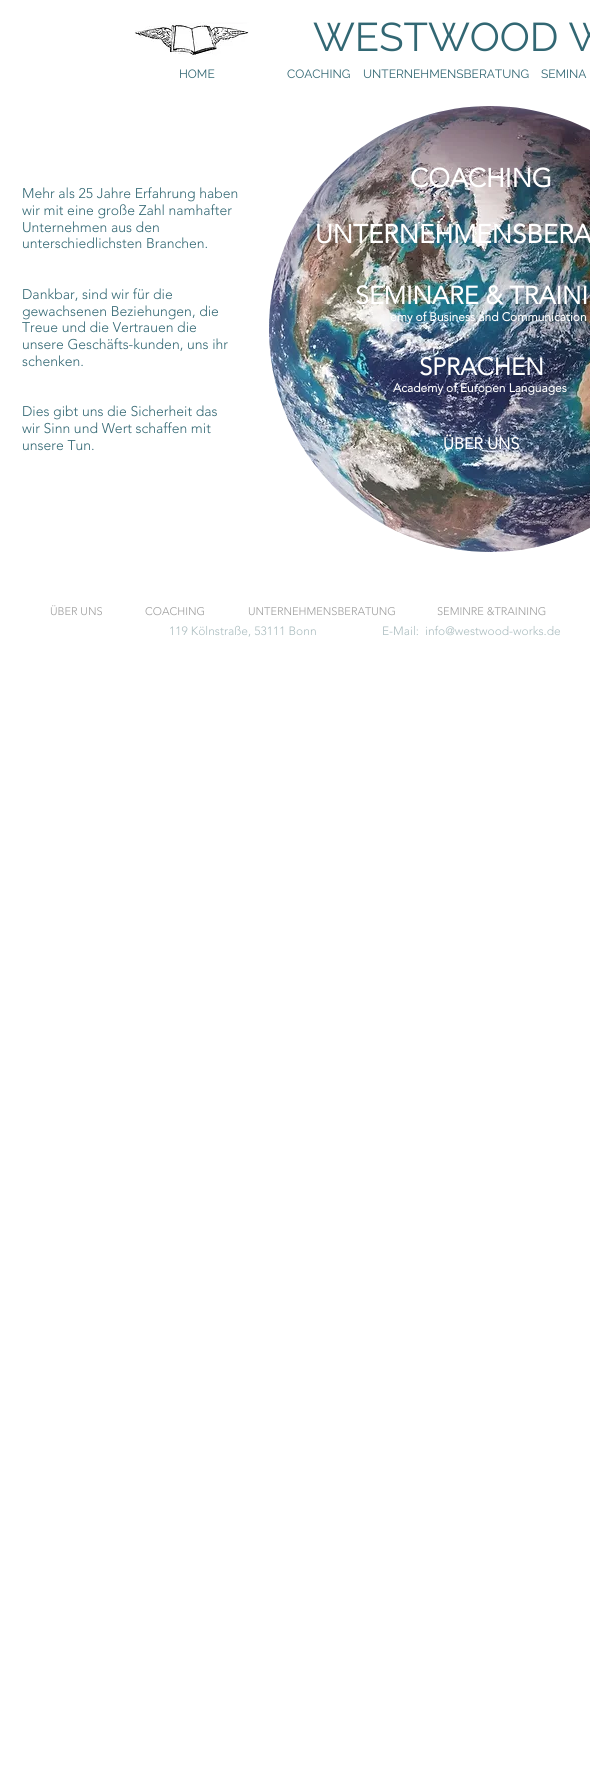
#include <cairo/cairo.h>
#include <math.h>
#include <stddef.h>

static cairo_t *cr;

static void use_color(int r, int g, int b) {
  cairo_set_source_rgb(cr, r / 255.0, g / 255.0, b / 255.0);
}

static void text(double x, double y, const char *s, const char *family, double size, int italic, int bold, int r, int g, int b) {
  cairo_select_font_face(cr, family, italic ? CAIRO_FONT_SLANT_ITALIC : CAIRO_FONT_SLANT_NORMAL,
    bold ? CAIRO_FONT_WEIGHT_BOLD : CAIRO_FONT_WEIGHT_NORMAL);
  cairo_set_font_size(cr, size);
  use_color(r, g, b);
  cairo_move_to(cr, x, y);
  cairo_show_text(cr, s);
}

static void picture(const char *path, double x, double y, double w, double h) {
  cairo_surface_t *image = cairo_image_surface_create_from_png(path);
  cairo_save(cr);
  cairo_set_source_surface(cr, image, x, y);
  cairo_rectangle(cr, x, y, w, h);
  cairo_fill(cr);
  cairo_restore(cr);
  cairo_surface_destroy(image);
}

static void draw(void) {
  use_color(255, 255, 255);
  cairo_paint(cr);
  picture("img_01.png", 134, 22, 115, 36);
  picture("img_02.png", 269, 106, 321, 446);
  text(313, 51, "WESTWOOD W", "Raleway", 40, 0, 0, 50, 103, 115);
  text(179, 78, "HOME", "Raleway", 12, 0, 0, 50, 103, 115);
  text(287, 78, "COACHING", "Raleway", 12, 0, 0, 50, 103, 115);
  text(363, 78, "UNTERNEHMENSBERATUNG", "Raleway", 12, 0, 0, 50, 103, 115);
  text(541, 78, "SEMINA", "Raleway", 12, 0, 0, 50, 103, 115);
  text(410, 187, "COACHING", "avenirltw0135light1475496", 26, 0, 1, 255, 255, 255);
  text(22, 198, "Mehr als 25 Jahre Erfahrung haben", "avenirltw0135light1475496 Light", 14, 0, 0, 50, 103, 115);
  text(22, 215, "wir mit eine große Zahl namhafter", "avenirltw0135light1475496 Light", 14, 0, 0, 50, 103, 115);
  text(22, 232, "Unternehmen aus den", "avenirltw0135light1475496 Light", 14, 0, 0, 50, 103, 115);
  text(22, 248, "unterschiedlichsten Branchen.", "avenirltw0135light1475496 Light", 14, 0, 0, 50, 103, 115);
  text(22, 299, "Dankbar, sind wir für die", "avenirltw0135light1475496 Light", 14, 0, 0, 50, 103, 115);
  text(22, 316, "gewachsenen Beziehungen, die", "avenirltw0135light1475496 Light", 14, 0, 0, 50, 103, 115);
  text(22, 332, "Treue und die Vertrauen die", "avenirltw0135light1475496 Light", 14, 0, 0, 50, 103, 115);
  text(22, 349, "unsere Geschäfts-kunden, uns ihr", "avenirltw0135light1475496 Light", 14, 0, 0, 50, 103, 115);
  text(22, 366, "schenken.", "avenirltw0135light1475496 Light", 14, 0, 0, 50, 103, 115);
  text(22, 416, "Dies gibt uns die Sicherheit das", "avenirltw0135light1475496 Light", 14, 0, 0, 50, 103, 115);
  text(22, 433, "wir Sinn und Wert schaffen mit", "avenirltw0135light1475496 Light", 14, 0, 0, 50, 103, 115);
  text(22, 450, "unsere Tun.", "avenirltw0135light1475496 Light", 14, 0, 0, 50, 103, 115);
  text(315, 243, "UNTERNEHMENSBERA", "avenirltw0135light1475496", 26, 0, 1, 255, 255, 255);
  text(355, 304, "SEMINARE & TRAINI", "avenirltw0135light1475496", 25, 0, 1, 255, 255, 255);
  text(390, 321, "emy of Business and Communication", "avenirltw0135light1475496", 12, 0, 1, 255, 255, 255);
  text(419, 375, "SPRACHEN", "avenirltw0135light1475496", 24, 0, 1, 255, 255, 255);
  text(393, 392, "Academy of Europen Languages", "avenirltw0135light1475496", 12, 0, 1, 255, 255, 255);
  text(443, 449, "ÜBER UNS", "avenirltw0135light1475496", 16, 0, 1, 255, 255, 255);
  text(50, 615, "ÜBER UNS", "avenirltw0135light1475496 Light", 11, 0, 0, 156, 156, 156);
  text(145, 615, "COACHING", "avenirltw0135light1475496 Light", 11, 0, 0, 156, 156, 156);
  text(248, 615, "UNTERNEHMENSBERATUNG", "avenirltw0135light1475496 Light", 11, 0, 0, 156, 156, 156);
  text(437, 615, "SEMINRE &TRAINING", "avenirltw0135light1475496 Light", 11, 0, 0, 156, 156, 156);
  text(169, 635, "119 Kölnstraße, 53111 Bonn", "avenirltw0135light1475496 Light", 12, 0, 0, 170, 188, 191);
  text(382, 635, "E-Mail:", "avenirltw0135light1475496 Light", 12, 0, 0, 170, 188, 191);
  text(425, 635, "info@westwood-works.de", "avenirltw0135light1475496 Light", 12, 0, 0, 170, 188, 191);
}

int main(void) {
  cairo_surface_t *surface = cairo_image_surface_create(CAIRO_FORMAT_RGB24, 590, 1785);
  cr = cairo_create(surface);
  cairo_font_options_t *options = cairo_font_options_create();
  cairo_font_options_set_hint_metrics(options, CAIRO_HINT_METRICS_OFF);
  cairo_font_options_set_hint_style(options, CAIRO_HINT_STYLE_NONE);
  cairo_set_font_options(cr, options);
  cairo_set_miter_limit(cr, 4);
  draw();
  cairo_surface_write_to_png(surface, "out.png");
  cairo_font_options_destroy(options);
  cairo_destroy(cr);
  cairo_surface_destroy(surface);
  return 0;
}
